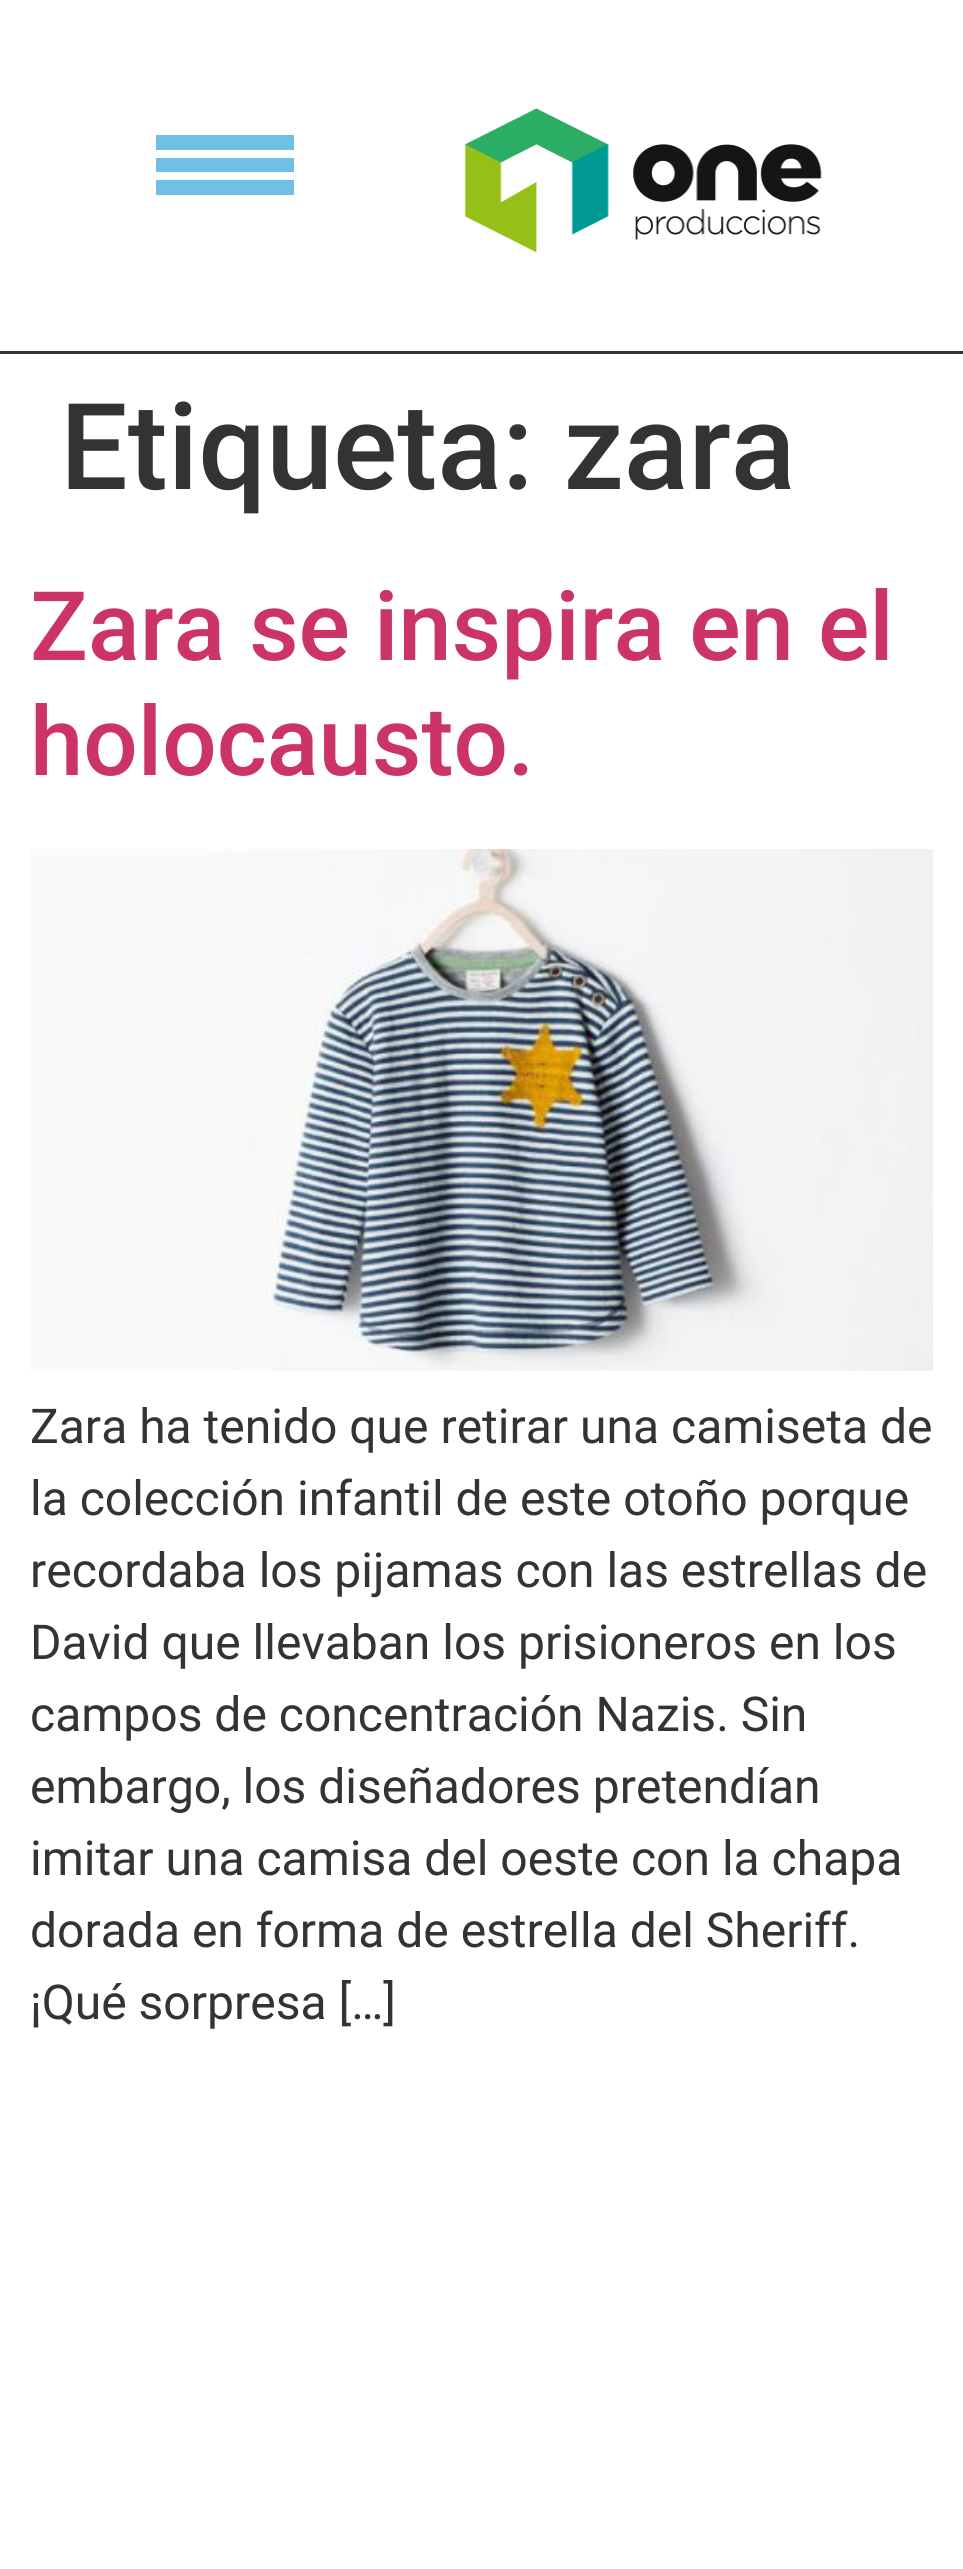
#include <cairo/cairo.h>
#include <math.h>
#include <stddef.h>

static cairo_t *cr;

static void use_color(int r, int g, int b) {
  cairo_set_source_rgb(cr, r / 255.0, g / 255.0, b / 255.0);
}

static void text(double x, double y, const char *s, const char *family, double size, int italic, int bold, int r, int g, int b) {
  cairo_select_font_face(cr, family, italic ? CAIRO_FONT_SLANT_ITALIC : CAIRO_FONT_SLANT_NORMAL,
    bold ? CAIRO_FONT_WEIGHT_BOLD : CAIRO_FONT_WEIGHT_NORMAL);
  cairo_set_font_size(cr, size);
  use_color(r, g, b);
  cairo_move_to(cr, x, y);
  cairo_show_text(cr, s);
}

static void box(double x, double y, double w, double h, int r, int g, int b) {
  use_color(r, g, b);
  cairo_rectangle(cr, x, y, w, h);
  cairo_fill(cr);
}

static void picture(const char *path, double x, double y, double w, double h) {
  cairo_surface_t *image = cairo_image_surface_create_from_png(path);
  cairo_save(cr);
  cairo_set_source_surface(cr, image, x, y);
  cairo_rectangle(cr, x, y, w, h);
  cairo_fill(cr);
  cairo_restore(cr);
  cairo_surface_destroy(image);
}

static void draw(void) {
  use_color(255, 255, 255);
  cairo_paint(cr);
  box(0, 351, 963, 3, 51, 51, 51);
  box(156, 135, 138, 15, 110, 193, 228);
  box(156, 158, 138, 14, 110, 193, 228);
  box(156, 180, 138, 15, 110, 193, 228);
  picture("img_01.png", 464, 108, 358, 145);
  picture("img_02.png", 30, 849, 903, 522);
  text(60, 489, "Etiqueta: zara", "Roboto Medium", 120, 0, 0, 51, 51, 51);
  text(30, 660, "Zara se inspira en el", "Roboto Medium", 96, 0, 0, 204, 51, 102);
  text(30, 775, "holocausto.", "Roboto Medium", 96, 0, 0, 204, 51, 102);
  text(30, 1443, "Zara ha tenido que retirar una camiseta de", "Roboto", 48, 0, 0, 51, 51, 51);
  text(30, 1515, "la colección infantil de este otoño porque", "Roboto", 48, 0, 0, 51, 51, 51);
  text(30, 1587, "recordaba los pijamas con las estrellas de", "Roboto", 48, 0, 0, 51, 51, 51);
  text(30, 1659, "David que llevaban los prisioneros en los", "Roboto", 48, 0, 0, 51, 51, 51);
  text(30, 1731, "campos de concentración Nazis. Sin", "Roboto", 48, 0, 0, 51, 51, 51);
  text(30, 1803, "embargo, los diseñadores pretendían", "Roboto", 48, 0, 0, 51, 51, 51);
  text(30, 1875, "imitar una camisa del oeste con la chapa", "Roboto", 48, 0, 0, 51, 51, 51);
  text(30, 1947, "dorada en forma de estrella del Sheriff.", "Roboto", 48, 0, 0, 51, 51, 51);
  text(30, 2019, "¡Qué sorpresa […]", "Roboto", 48, 0, 0, 51, 51, 51);
}

int main(void) {
  cairo_surface_t *surface = cairo_image_surface_create(CAIRO_FORMAT_RGB24, 963, 2569);
  cr = cairo_create(surface);
  cairo_font_options_t *options = cairo_font_options_create();
  cairo_font_options_set_hint_metrics(options, CAIRO_HINT_METRICS_OFF);
  cairo_font_options_set_hint_style(options, CAIRO_HINT_STYLE_NONE);
  cairo_set_font_options(cr, options);
  cairo_set_miter_limit(cr, 4);
  draw();
  cairo_surface_write_to_png(surface, "out.png");
  cairo_font_options_destroy(options);
  cairo_destroy(cr);
  cairo_surface_destroy(surface);
  return 0;
}
